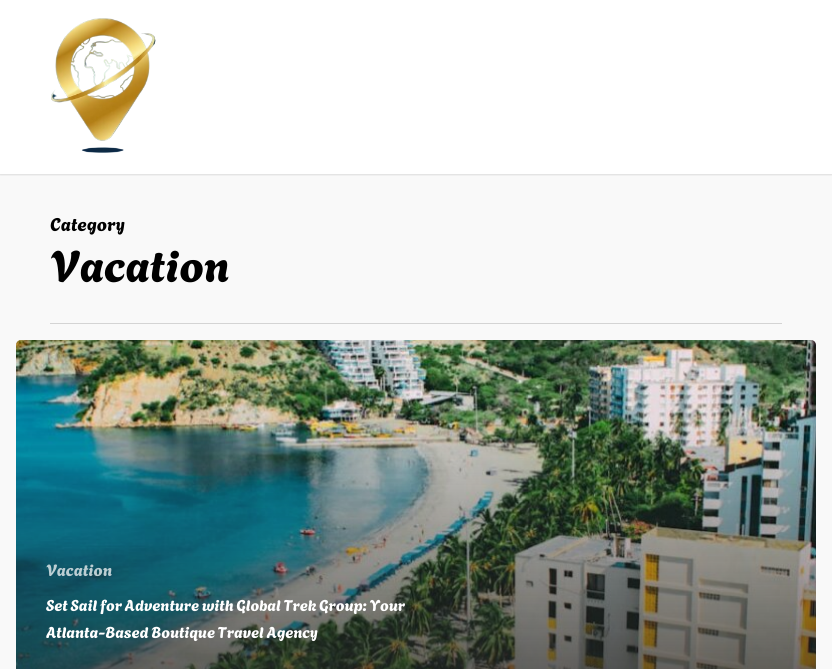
#include <cairo/cairo.h>
#include <math.h>
#include <stddef.h>

static cairo_t *cr;

static void use_color(int r, int g, int b) {
  cairo_set_source_rgb(cr, r / 255.0, g / 255.0, b / 255.0);
}

static void text(double x, double y, const char *s, const char *family, double size, int italic, int bold, int r, int g, int b) {
  cairo_select_font_face(cr, family, italic ? CAIRO_FONT_SLANT_ITALIC : CAIRO_FONT_SLANT_NORMAL,
    bold ? CAIRO_FONT_WEIGHT_BOLD : CAIRO_FONT_WEIGHT_NORMAL);
  cairo_set_font_size(cr, size);
  use_color(r, g, b);
  cairo_move_to(cr, x, y);
  cairo_show_text(cr, s);
}

static void spaced_text(double x, double y, const char *s, double letter, double word) {
  cairo_move_to(cr, x, y);
  while (*s) {
    char ch[5] = {0};
    int n = 0;
    do ch[n++] = *s++; while ((*s & 0xC0) == 0x80);
    cairo_show_text(cr, ch);
    cairo_rel_move_to(cr, letter + word * (*ch == ' '), 0);
  }
}

static void box(double x, double y, double w, double h, int r, int g, int b) {
  use_color(r, g, b);
  cairo_rectangle(cr, x, y, w, h);
  cairo_fill(cr);
}

static void round_rect(double x, double y, double w, double h, double r) {
  cairo_new_sub_path(cr);
  cairo_arc(cr, x + w - r, y + h - r, r, 0, M_PI / 2);
  cairo_arc(cr, x + r, y + h - r, r, M_PI / 2, M_PI);
  cairo_arc(cr, x + r, y + r, r, M_PI, 1.5 * M_PI);
  cairo_arc(cr, x + w - r, y + r, r, 1.5 * M_PI, 2 * M_PI);
  cairo_close_path(cr);
}

static void shadow(double x, double y, double w, double h, double r, double blur, double alpha) {
  cairo_push_group_with_content(cr, CAIRO_CONTENT_ALPHA);
  cairo_set_operator(cr, CAIRO_OPERATOR_SOURCE);
  for (int i = 15; i >= -15 && fmin(w, h) + blur * i / 3 > 0; i -= 2) {
    double e = blur * i / 6;
    cairo_set_source_rgba(cr, 0, 0, 0, alpha * erfc((i - 1) / 8.5) / 2);
    round_rect(x - e, y - e, w + 2 * e, h + 2 * e, fmax(0, fmin(r + e + blur * .6, fmin(w, h) / 2 + e)));
    cairo_fill(cr);
  }
  cairo_pattern_t *soft = cairo_pop_group(cr);
  cairo_mask(cr, soft);
  cairo_pattern_destroy(soft);
}

static void picture(const char *path, double x, double y, double w, double h) {
  cairo_surface_t *image = cairo_image_surface_create_from_png(path);
  cairo_save(cr);
  cairo_set_source_surface(cr, image, x, y);
  cairo_rectangle(cr, x, y, w, h);
  cairo_fill(cr);
  cairo_restore(cr);
  cairo_surface_destroy(image);
}

static void draw(void) {
  use_color(249, 249, 249);
  cairo_paint(cr);
  box(0, 0, 832, 174, 255, 255, 255);
  cairo_save(cr);
  cairo_rectangle(cr, 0, 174, 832, 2);
  cairo_clip(cr);
  use_color(0, 0, 0);
  shadow(0, 0, 832, 174, 0, 1.5, 0.22);
  cairo_restore(cr);
  picture("img_01.png", 51, 18, 105, 135);
  box(50, 323, 732, 1, 212, 212, 212);
  picture("img_02.png", 16, 340, 800, 329);
  text(50, 231, "Category", "Agbalumo", 18, 0, 0, 0, 0, 0);
  cairo_set_font_size(cr, 43.5);
  spaced_text(50, 282, "Vacation", -0.03, 0);
  text(46, 576, "Vacation", "Agbalumo", 16, 0, 0, 188, 206, 211);
  cairo_set_font_size(cr, 15.4);
  use_color(255, 255, 255);
  spaced_text(46, 611, "Set Sail for Adventure with Global Trek Group: Your", -0.03, 0);
  spaced_text(46, 638, "Atlanta-Based Boutique Travel Agency", -0.03, 0);
}

int main(void) {
  cairo_surface_t *surface = cairo_image_surface_create(CAIRO_FORMAT_RGB24, 832, 669);
  cr = cairo_create(surface);
  cairo_font_options_t *options = cairo_font_options_create();
  cairo_font_options_set_hint_metrics(options, CAIRO_HINT_METRICS_OFF);
  cairo_font_options_set_hint_style(options, CAIRO_HINT_STYLE_NONE);
  cairo_set_font_options(cr, options);
  cairo_set_miter_limit(cr, 4);
  draw();
  cairo_surface_write_to_png(surface, "out.png");
  cairo_font_options_destroy(options);
  cairo_destroy(cr);
  cairo_surface_destroy(surface);
  return 0;
}
